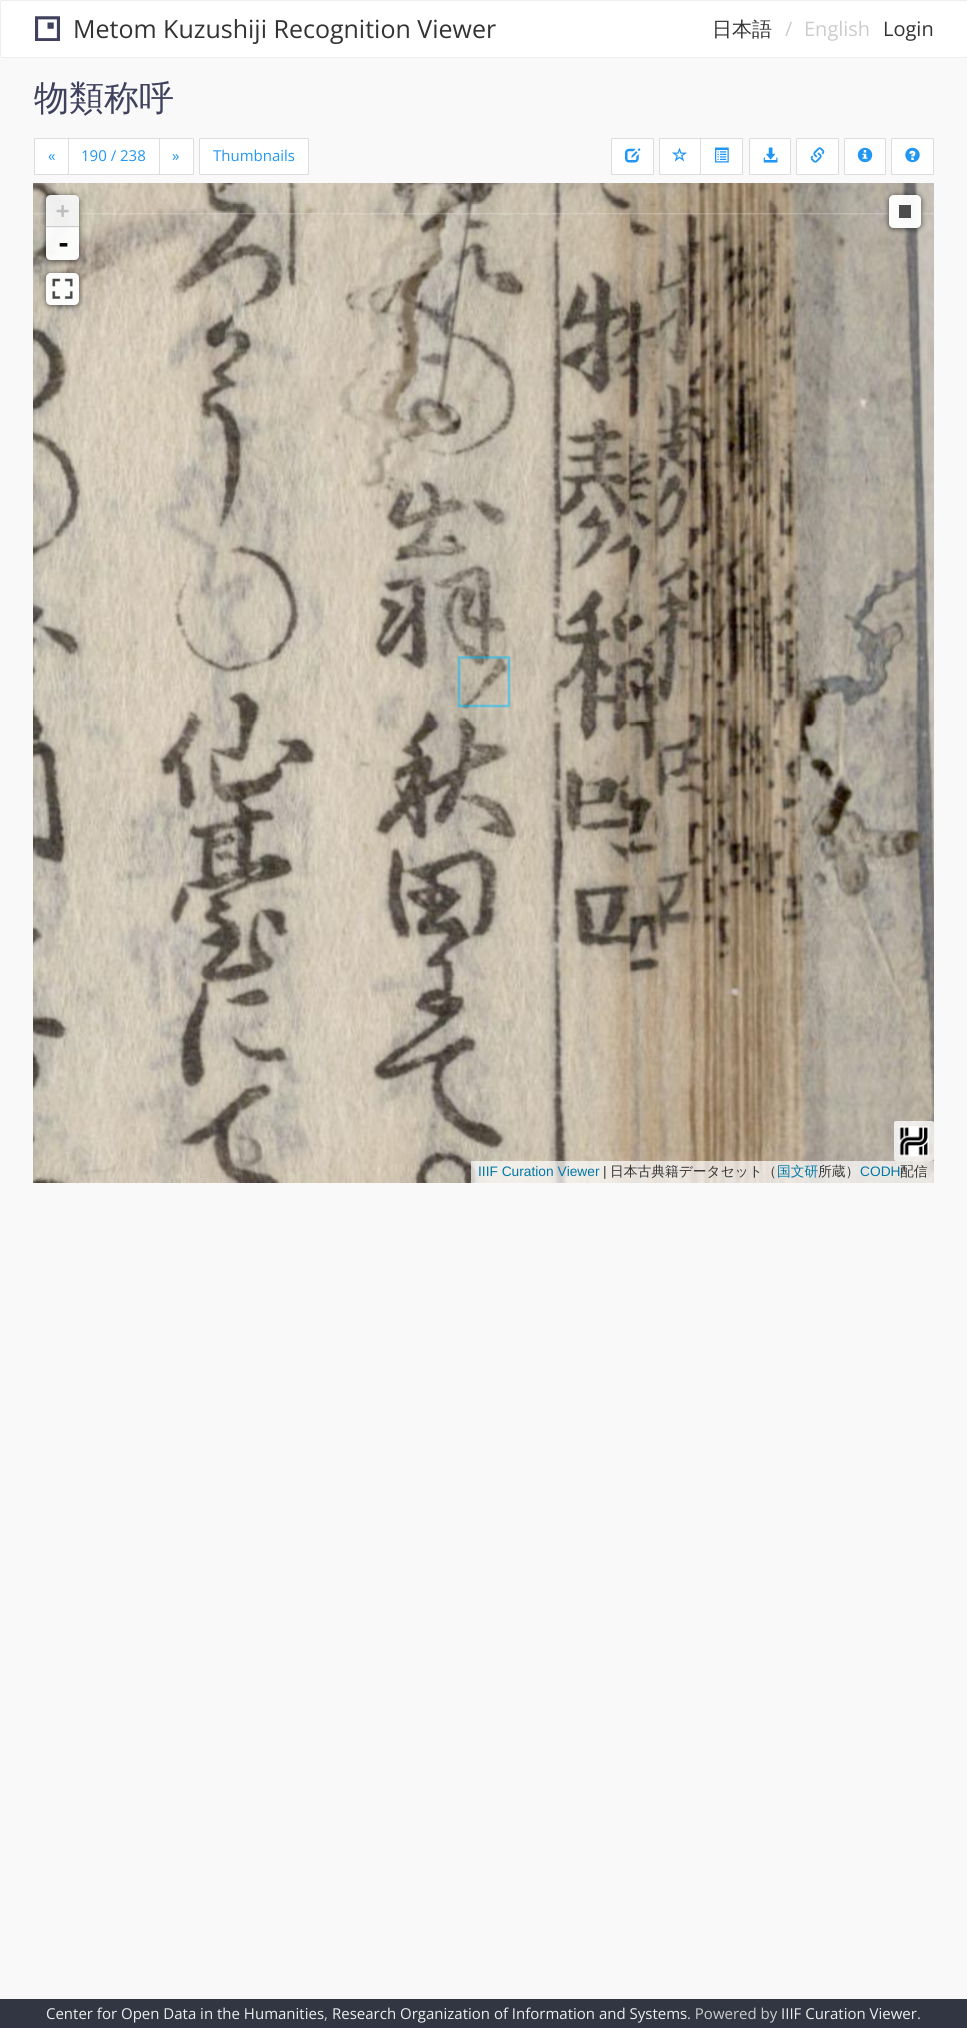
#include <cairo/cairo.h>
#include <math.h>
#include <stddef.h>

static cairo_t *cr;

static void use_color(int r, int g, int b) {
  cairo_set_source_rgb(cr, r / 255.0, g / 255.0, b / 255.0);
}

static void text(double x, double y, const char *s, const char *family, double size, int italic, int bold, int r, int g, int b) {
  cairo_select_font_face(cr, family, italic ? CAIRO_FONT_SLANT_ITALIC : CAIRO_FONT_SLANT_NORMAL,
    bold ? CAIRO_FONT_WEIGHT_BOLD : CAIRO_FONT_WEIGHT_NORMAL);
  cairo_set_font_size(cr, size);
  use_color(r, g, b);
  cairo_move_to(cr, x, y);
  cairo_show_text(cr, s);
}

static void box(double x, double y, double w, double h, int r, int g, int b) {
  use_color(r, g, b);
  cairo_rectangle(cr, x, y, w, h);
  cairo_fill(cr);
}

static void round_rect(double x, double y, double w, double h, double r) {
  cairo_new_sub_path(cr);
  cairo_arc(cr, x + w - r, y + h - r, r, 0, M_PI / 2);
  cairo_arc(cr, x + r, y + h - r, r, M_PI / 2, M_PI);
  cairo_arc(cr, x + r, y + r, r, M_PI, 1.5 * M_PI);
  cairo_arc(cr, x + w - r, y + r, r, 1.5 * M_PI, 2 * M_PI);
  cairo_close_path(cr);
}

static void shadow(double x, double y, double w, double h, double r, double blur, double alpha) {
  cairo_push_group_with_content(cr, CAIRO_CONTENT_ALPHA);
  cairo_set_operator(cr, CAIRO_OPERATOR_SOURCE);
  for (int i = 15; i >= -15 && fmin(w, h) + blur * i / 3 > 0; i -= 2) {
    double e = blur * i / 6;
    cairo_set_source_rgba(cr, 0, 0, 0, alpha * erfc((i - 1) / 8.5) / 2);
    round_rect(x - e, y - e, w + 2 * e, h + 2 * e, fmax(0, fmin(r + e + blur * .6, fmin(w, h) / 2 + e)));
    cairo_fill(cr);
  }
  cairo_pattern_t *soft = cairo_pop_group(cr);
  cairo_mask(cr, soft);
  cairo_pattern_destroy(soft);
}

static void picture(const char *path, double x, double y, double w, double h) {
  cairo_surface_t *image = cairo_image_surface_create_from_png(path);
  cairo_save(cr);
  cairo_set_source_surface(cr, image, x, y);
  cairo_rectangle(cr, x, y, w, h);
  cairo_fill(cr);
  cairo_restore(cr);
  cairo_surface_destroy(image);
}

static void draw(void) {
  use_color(249, 249, 249);
  cairo_paint(cr);
  use_color(255, 255, 255);
  round_rect(0.5, 0.5, 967, 57, 2);
  cairo_fill_preserve(cr);
  use_color(238, 238, 238);
  cairo_set_line_width(cr, 1);
  cairo_stroke(cr);
  picture("img_01.png", 35, 16, 25, 25);
  use_color(255, 255, 255);
  cairo_new_path(cr);
  cairo_move_to(cr, 35, 138.5);
  cairo_line_to(cr, 68.5, 138.5);
  cairo_line_to(cr, 68.5, 174.5);
  cairo_line_to(cr, 35, 174.5);
  cairo_curve_to(cr, 34.5, 174.5, 34.5, 174.5, 34.5, 174);
  cairo_line_to(cr, 34.5, 139);
  cairo_curve_to(cr, 34.5, 138.5, 34.5, 138.5, 35, 138.5);
  cairo_close_path(cr);
  cairo_fill_preserve(cr);
  use_color(221, 221, 221);
  cairo_stroke(cr);
  use_color(255, 255, 255);
  cairo_rectangle(cr, 68.5, 138.5, 91, 36);
  cairo_fill_preserve(cr);
  use_color(221, 221, 221);
  cairo_stroke(cr);
  use_color(255, 255, 255);
  cairo_new_path(cr);
  cairo_move_to(cr, 159.5, 138.5);
  cairo_line_to(cr, 193, 138.5);
  cairo_curve_to(cr, 193.5, 138.5, 193.5, 138.5, 193.5, 139);
  cairo_line_to(cr, 193.5, 174);
  cairo_curve_to(cr, 193.5, 174.5, 193.5, 174.5, 193, 174.5);
  cairo_line_to(cr, 159.5, 174.5);
  cairo_close_path(cr);
  cairo_fill_preserve(cr);
  use_color(221, 221, 221);
  cairo_stroke(cr);
  use_color(255, 255, 255);
  round_rect(199.5, 138.5, 109, 36, 0.5);
  cairo_fill_preserve(cr);
  use_color(221, 221, 221);
  cairo_stroke(cr);
  use_color(255, 255, 255);
  round_rect(611.5, 138.5, 42, 36, 0.5);
  cairo_fill_preserve(cr);
  use_color(221, 221, 221);
  cairo_stroke(cr);
  picture("img_02.png", 625, 148, 16, 15);
  use_color(255, 255, 255);
  cairo_new_path(cr);
  cairo_move_to(cr, 660, 138.5);
  cairo_line_to(cr, 700.5, 138.5);
  cairo_line_to(cr, 700.5, 174.5);
  cairo_line_to(cr, 660, 174.5);
  cairo_curve_to(cr, 659.5, 174.5, 659.5, 174.5, 659.5, 174);
  cairo_line_to(cr, 659.5, 139);
  cairo_curve_to(cr, 659.5, 138.5, 659.5, 138.5, 660, 138.5);
  cairo_close_path(cr);
  cairo_fill_preserve(cr);
  use_color(221, 221, 221);
  cairo_stroke(cr);
  picture("img_03.png", 672, 148, 15, 14);
  use_color(255, 255, 255);
  cairo_new_path(cr);
  cairo_move_to(cr, 700.5, 138.5);
  cairo_line_to(cr, 742, 138.5);
  cairo_curve_to(cr, 742.5, 138.5, 742.5, 138.5, 742.5, 139);
  cairo_line_to(cr, 742.5, 174);
  cairo_curve_to(cr, 742.5, 174.5, 742.5, 174.5, 742, 174.5);
  cairo_line_to(cr, 700.5, 174.5);
  cairo_close_path(cr);
  cairo_fill_preserve(cr);
  use_color(221, 221, 221);
  cairo_stroke(cr);
  picture("img_04.png", 715, 147, 14, 16);
  use_color(255, 255, 255);
  round_rect(749.5, 138.5, 41, 36, 0.5);
  cairo_fill_preserve(cr);
  use_color(221, 221, 221);
  cairo_stroke(cr);
  picture("img_05.png", 763, 147, 15, 16);
  use_color(255, 255, 255);
  round_rect(796.5, 138.5, 42, 36, 0.5);
  cairo_fill_preserve(cr);
  use_color(221, 221, 221);
  cairo_stroke(cr);
  picture("img_06.png", 810, 147, 15, 16);
  use_color(255, 255, 255);
  round_rect(844.5, 138.5, 41, 36, 0.5);
  cairo_fill_preserve(cr);
  use_color(221, 221, 221);
  cairo_stroke(cr);
  picture("img_07.png", 857, 147, 16, 16);
  use_color(255, 255, 255);
  round_rect(891.5, 138.5, 42, 36, 0.5);
  cairo_fill_preserve(cr);
  use_color(221, 221, 221);
  cairo_stroke(cr);
  picture("img_08.png", 905, 147, 15, 16);
  picture("img_09.png", 33, 183, 457, 32);
  picture("img_10.png", 490, 183, 444, 32);
  picture("img_11.png", 33, 213, 457, 970);
  picture("img_12.png", 490, 213, 444, 970);
  cairo_new_path(cr);
  cairo_move_to(cr, 459, 706);
  cairo_line_to(cr, 459, 657.5);
  cairo_line_to(cr, 509, 657.5);
  cairo_line_to(cr, 509, 706);
  cairo_close_path(cr);
  cairo_set_source_rgba(cr, 0, 0.749, 1, 0.5);
  cairo_set_line_width(cr, 2.5);
  cairo_set_line_cap(cr, CAIRO_LINE_CAP_ROUND);
  cairo_set_line_join(cr, CAIRO_LINE_JOIN_ROUND);
  cairo_stroke(cr);
  cairo_save(cr);
  cairo_set_fill_rule(cr, CAIRO_FILL_RULE_EVEN_ODD);
  cairo_new_path(cr);
  cairo_move_to(cr, 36, 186);
  cairo_line_to(cr, 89, 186);
  cairo_line_to(cr, 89, 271);
  cairo_line_to(cr, 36, 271);
  cairo_close_path(cr);
  cairo_move_to(cr, 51, 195);
  cairo_line_to(cr, 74, 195);
  cairo_curve_to(cr, 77, 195, 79, 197, 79, 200);
  cairo_line_to(cr, 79, 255);
  cairo_curve_to(cr, 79, 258, 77, 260, 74, 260);
  cairo_line_to(cr, 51, 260);
  cairo_curve_to(cr, 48, 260, 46, 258, 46, 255);
  cairo_line_to(cr, 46, 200);
  cairo_curve_to(cr, 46, 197, 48, 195, 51, 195);
  cairo_close_path(cr);
  cairo_clip(cr);
  use_color(0, 0, 0);
  shadow(46, 196, 33, 65, 5, 3, 0.63);
  cairo_restore(cr);
  cairo_set_source_rgba(cr, 0.957, 0.957, 0.957, 0.96);
  cairo_new_path(cr);
  cairo_move_to(cr, 51, 195);
  cairo_line_to(cr, 74, 195);
  cairo_curve_to(cr, 77, 195, 79, 197, 79, 200);
  cairo_line_to(cr, 79, 228);
  cairo_line_to(cr, 46, 228);
  cairo_line_to(cr, 46, 200);
  cairo_curve_to(cr, 46, 197, 48, 195, 51, 195);
  cairo_close_path(cr);
  cairo_fill(cr);
  cairo_set_source_rgba(cr, 0.8, 0.8, 0.8, 0.96);
  cairo_rectangle(cr, 46, 226, 33, 1);
  cairo_fill(cr);
  cairo_set_source_rgba(cr, 1, 1, 1, 0.96);
  cairo_new_path(cr);
  cairo_move_to(cr, 46, 228);
  cairo_line_to(cr, 79, 228);
  cairo_line_to(cr, 79, 255);
  cairo_curve_to(cr, 79, 258, 77, 260, 74, 260);
  cairo_line_to(cr, 51, 260);
  cairo_curve_to(cr, 48, 260, 46, 258, 46, 255);
  cairo_close_path(cr);
  cairo_fill(cr);
  cairo_save(cr);
  cairo_set_fill_rule(cr, CAIRO_FILL_RULE_EVEN_ODD);
  cairo_new_path(cr);
  cairo_move_to(cr, 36, 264);
  cairo_line_to(cr, 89, 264);
  cairo_line_to(cr, 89, 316);
  cairo_line_to(cr, 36, 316);
  cairo_close_path(cr);
  cairo_move_to(cr, 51, 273);
  cairo_line_to(cr, 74, 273);
  cairo_curve_to(cr, 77, 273, 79, 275, 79, 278);
  cairo_line_to(cr, 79, 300);
  cairo_curve_to(cr, 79, 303, 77, 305, 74, 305);
  cairo_line_to(cr, 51, 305);
  cairo_curve_to(cr, 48, 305, 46, 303, 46, 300);
  cairo_line_to(cr, 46, 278);
  cairo_curve_to(cr, 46, 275, 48, 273, 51, 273);
  cairo_close_path(cr);
  cairo_clip(cr);
  use_color(0, 0, 0);
  shadow(46, 274, 33, 32, 5, 3, 0.63);
  cairo_restore(cr);
  round_rect(46, 273, 33, 32, 5);
  cairo_fill(cr);
  picture("img_13.png", 52, 278, 21, 21);
  cairo_save(cr);
  cairo_set_fill_rule(cr, CAIRO_FILL_RULE_EVEN_ODD);
  cairo_new_path(cr);
  cairo_move_to(cr, 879, 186);
  cairo_line_to(cr, 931, 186);
  cairo_line_to(cr, 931, 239);
  cairo_line_to(cr, 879, 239);
  cairo_close_path(cr);
  cairo_move_to(cr, 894, 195);
  cairo_line_to(cr, 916, 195);
  cairo_curve_to(cr, 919, 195, 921, 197, 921, 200);
  cairo_line_to(cr, 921, 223);
  cairo_curve_to(cr, 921, 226, 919, 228, 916, 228);
  cairo_line_to(cr, 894, 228);
  cairo_curve_to(cr, 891, 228, 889, 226, 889, 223);
  cairo_line_to(cr, 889, 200);
  cairo_curve_to(cr, 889, 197, 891, 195, 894, 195);
  cairo_close_path(cr);
  cairo_clip(cr);
  use_color(0, 0, 0);
  shadow(889, 196, 32, 33, 5, 3, 0.63);
  cairo_restore(cr);
  round_rect(889, 195, 32, 33, 5);
  cairo_fill(cr);
  cairo_set_source_rgba(cr, 0.275, 0.275, 0.275, 0.96);
  cairo_rectangle(cr, 899, 205, 12, 13);
  cairo_fill(cr);
  cairo_set_source_rgba(cr, 1, 1, 1, 0.7);
  round_rect(894, 1121, 40, 40, 2.5);
  cairo_fill(cr);
  picture("img_14.png", 898, 1126, 31, 31);
  cairo_rectangle(cr, 896.5, 1123.5, 35, 35);
  cairo_set_source_rgba(cr, 1, 1, 1, 0.3);
  cairo_set_line_width(cr, 5);
  cairo_set_line_cap(cr, CAIRO_LINE_CAP_BUTT);
  cairo_set_line_join(cr, CAIRO_LINE_JOIN_MITER);
  cairo_stroke(cr);
  cairo_set_source_rgba(cr, 1, 1, 1, 0.7);
  cairo_rectangle(cr, 471, 1161, 463, 22);
  cairo_fill(cr);
  box(0, 1999, 967, 29, 49, 54, 66);
  text(73, 38, "Metom Kuzushiji Recognition Viewer", "Open Sans", 25, 0, 0, 51, 51, 51);
  text(712, 36, "日本語", "WenQuanYi Zen Hei Medium", 20, 0, 0, 51, 51, 51);
  text(785, 36, "/", "Open Sans", 20, 0, 0, 204, 204, 204);
  text(804, 36, "English", "Open Sans", 20, 0, 0, 204, 204, 204);
  text(883, 36, "Login", "Open Sans", 20, 0, 0, 51, 51, 51);
  text(34, 110, "物類称呼", "WenQuanYi Zen Hei Medium", 35, 0, 0, 63, 65, 94);
  text(48, 161, "«", "Open Sans", 15, 0, 0, 33, 150, 243);
  text(81, 161, "190 / 238", "Open Sans", 15, 0, 0, 33, 150, 243);
  text(172, 161, "»", "Open Sans", 15, 0, 0, 33, 150, 243);
  text(213, 161, "Thumbnails", "Open Sans", 15, 0, 0, 33, 150, 243);
  text(56, 218, "+", "DejaVu Sans Mono", 22, 0, 1, 189, 189, 189);
  text(56, 252, "-", "DejaVu Sans Mono", 25, 0, 1, 9, 9, 9);
  text(478, 1176, "IIIF Curation Viewer", "Liberation Sans", 13.75, 0, 0, 0, 120, 168);
  text(603, 1176, "|", "Liberation Sans", 13.75, 0, 0, 51, 51, 51);
  text(610, 1176, "日本古典籍データセット（", "WenQuanYi Zen Hei Medium", 13.75, 0, 0, 51, 51, 51);
  text(777, 1176, "国文研", "WenQuanYi Zen Hei Medium", 13.75, 0, 0, 0, 120, 168);
  text(818, 1176, "所蔵）", "WenQuanYi Zen Hei Medium", 13.75, 0, 0, 51, 51, 51);
  text(860, 1176, "CODH", "Liberation Sans", 13.75, 0, 0, 0, 120, 168);
  text(900, 1176, "配信", "WenQuanYi Zen Hei Medium", 13.75, 0, 0, 51, 51, 51);
  text(46, 2019, "Center for Open Data in the Humanities", "Open Sans", 15, 0, 0, 238, 238, 238);
  text(324, 2019, ",", "Open Sans", 15, 0, 0, 204, 204, 204);
  text(332, 2019, "Research Organization of Information and Systems", "Open Sans", 15, 0, 0, 238, 238, 238);
  text(687, 2019, ". Powered by", "Open Sans", 15, 0, 0, 204, 204, 204);
  text(781, 2019, "IIIF Curation Viewer", "Open Sans", 15, 0, 0, 238, 238, 238);
  text(917, 2019, ".", "Open Sans", 15, 0, 0, 204, 204, 204);
}

int main(void) {
  cairo_surface_t *surface = cairo_image_surface_create(CAIRO_FORMAT_RGB24, 967, 2028);
  cr = cairo_create(surface);
  cairo_font_options_t *options = cairo_font_options_create();
  cairo_font_options_set_hint_metrics(options, CAIRO_HINT_METRICS_OFF);
  cairo_font_options_set_hint_style(options, CAIRO_HINT_STYLE_NONE);
  cairo_set_font_options(cr, options);
  cairo_set_miter_limit(cr, 4);
  draw();
  cairo_surface_write_to_png(surface, "out.png");
  cairo_font_options_destroy(options);
  cairo_destroy(cr);
  cairo_surface_destroy(surface);
  return 0;
}
